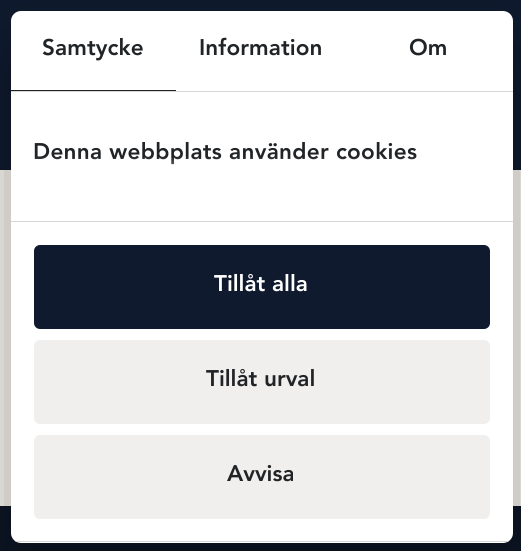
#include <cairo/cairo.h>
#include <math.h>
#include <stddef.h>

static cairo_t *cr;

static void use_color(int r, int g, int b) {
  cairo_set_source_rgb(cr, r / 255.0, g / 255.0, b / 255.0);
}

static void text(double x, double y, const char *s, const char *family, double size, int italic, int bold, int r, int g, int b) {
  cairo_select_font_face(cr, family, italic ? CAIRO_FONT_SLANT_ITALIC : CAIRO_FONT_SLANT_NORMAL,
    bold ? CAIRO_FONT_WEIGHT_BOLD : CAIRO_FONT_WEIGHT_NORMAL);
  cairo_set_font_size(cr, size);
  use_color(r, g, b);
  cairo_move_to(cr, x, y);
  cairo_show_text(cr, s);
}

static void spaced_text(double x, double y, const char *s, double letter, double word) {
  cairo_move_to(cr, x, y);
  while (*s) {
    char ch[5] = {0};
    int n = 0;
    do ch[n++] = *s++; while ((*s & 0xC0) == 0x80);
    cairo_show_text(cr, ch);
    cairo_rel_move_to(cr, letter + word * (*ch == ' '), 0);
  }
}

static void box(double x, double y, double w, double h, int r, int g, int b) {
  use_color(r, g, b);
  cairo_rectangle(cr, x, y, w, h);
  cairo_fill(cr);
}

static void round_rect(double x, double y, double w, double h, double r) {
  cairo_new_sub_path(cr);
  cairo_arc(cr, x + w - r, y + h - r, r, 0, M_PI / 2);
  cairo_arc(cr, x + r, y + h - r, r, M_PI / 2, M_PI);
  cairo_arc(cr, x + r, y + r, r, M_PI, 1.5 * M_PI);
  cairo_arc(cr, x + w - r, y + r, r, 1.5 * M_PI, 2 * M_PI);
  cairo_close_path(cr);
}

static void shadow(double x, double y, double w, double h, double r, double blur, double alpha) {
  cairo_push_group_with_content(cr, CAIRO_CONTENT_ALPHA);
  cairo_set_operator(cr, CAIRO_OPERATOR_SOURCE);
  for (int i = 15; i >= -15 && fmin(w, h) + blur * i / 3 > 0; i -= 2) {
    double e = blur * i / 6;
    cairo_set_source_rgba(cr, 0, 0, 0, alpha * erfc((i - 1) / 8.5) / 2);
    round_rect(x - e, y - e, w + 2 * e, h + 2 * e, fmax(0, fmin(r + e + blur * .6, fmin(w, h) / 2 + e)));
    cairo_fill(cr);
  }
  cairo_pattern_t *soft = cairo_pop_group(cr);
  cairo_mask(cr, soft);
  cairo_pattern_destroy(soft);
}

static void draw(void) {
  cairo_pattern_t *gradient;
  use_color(244, 241, 236);
  cairo_paint(cr);
  box(0, 0, 521, 170, 15, 26, 46);
  box(0, 506, 521, 45, 12, 21, 36);
  use_color(0, 0, 0);
  shadow(11, 51, 502, 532, 10, 42.5, 0.3);
  use_color(255, 255, 255);
  round_rect(11, 11, 502, 532, 10);
  cairo_fill(cr);
  box(11, 91, 502, 1, 214, 214, 214);
  box(11, 90, 165, 1, 33, 36, 39);
  box(11, 221, 502, 1, 214, 214, 214);
  cairo_save(cr);
  round_rect(11, 11, 502, 532, 10);
  cairo_clip(cr);
  box(11, 541, 502, 1, 214, 214, 214);
  cairo_restore(cr);
  use_color(15, 26, 46);
  round_rect(35.5, 246.5, 453, 81, 4.5);
  cairo_fill_preserve(cr);
  cairo_set_line_width(cr, 3);
  cairo_stroke(cr);
  use_color(241, 239, 238);
  round_rect(35.5, 341.5, 453, 81, 4.5);
  cairo_fill_preserve(cr);
  cairo_stroke(cr);
  round_rect(35.5, 436.5, 453, 81, 4.5);
  cairo_fill_preserve(cr);
  cairo_stroke(cr);
  cairo_select_font_face(cr, "Avenir Black", CAIRO_FONT_SLANT_NORMAL, CAIRO_FONT_WEIGHT_NORMAL);
  cairo_set_font_size(cr, 22.5);
  use_color(33, 36, 39);
  spaced_text(42, 55, "Samtycke", 0.1, 0);
  spaced_text(199, 55, "Information", 0.1, 0);
  spaced_text(409, 55, "Om", 0.1, 0);
  spaced_text(33, 159, "Denna webbplats använder cookies", 0.3, 0);
  gradient = cairo_pattern_create_linear(251, 221, 251, 156);
  cairo_pattern_add_color_stop_rgba(gradient, 0, 1, 1, 1, 1);
  cairo_pattern_add_color_stop_rgba(gradient, 0.5, 1, 1, 1, 0.8);
  cairo_pattern_add_color_stop_rgba(gradient, 1, 1, 1, 1, 0);
  cairo_set_source(cr, gradient);
  cairo_pattern_destroy(gradient);
  cairo_rectangle(cr, 34, 157, 382, 8);
  cairo_fill(cr);
  text(214, 291, "Tillåt alla", "Avenir Black", 22.5, 0, 0, 255, 255, 255);
  text(206, 386, "Tillåt urval", "Avenir Black", 22.5, 0, 0, 33, 36, 39);
  text(227, 481, "Avvisa", "Avenir Black", 22.5, 0, 0, 33, 36, 39);
}

int main(void) {
  cairo_surface_t *surface = cairo_image_surface_create(CAIRO_FORMAT_RGB24, 521, 551);
  cr = cairo_create(surface);
  cairo_font_options_t *options = cairo_font_options_create();
  cairo_font_options_set_hint_metrics(options, CAIRO_HINT_METRICS_OFF);
  cairo_font_options_set_hint_style(options, CAIRO_HINT_STYLE_NONE);
  cairo_set_font_options(cr, options);
  cairo_set_miter_limit(cr, 4);
  draw();
  cairo_surface_write_to_png(surface, "out.png");
  cairo_font_options_destroy(options);
  cairo_destroy(cr);
  cairo_surface_destroy(surface);
  return 0;
}
